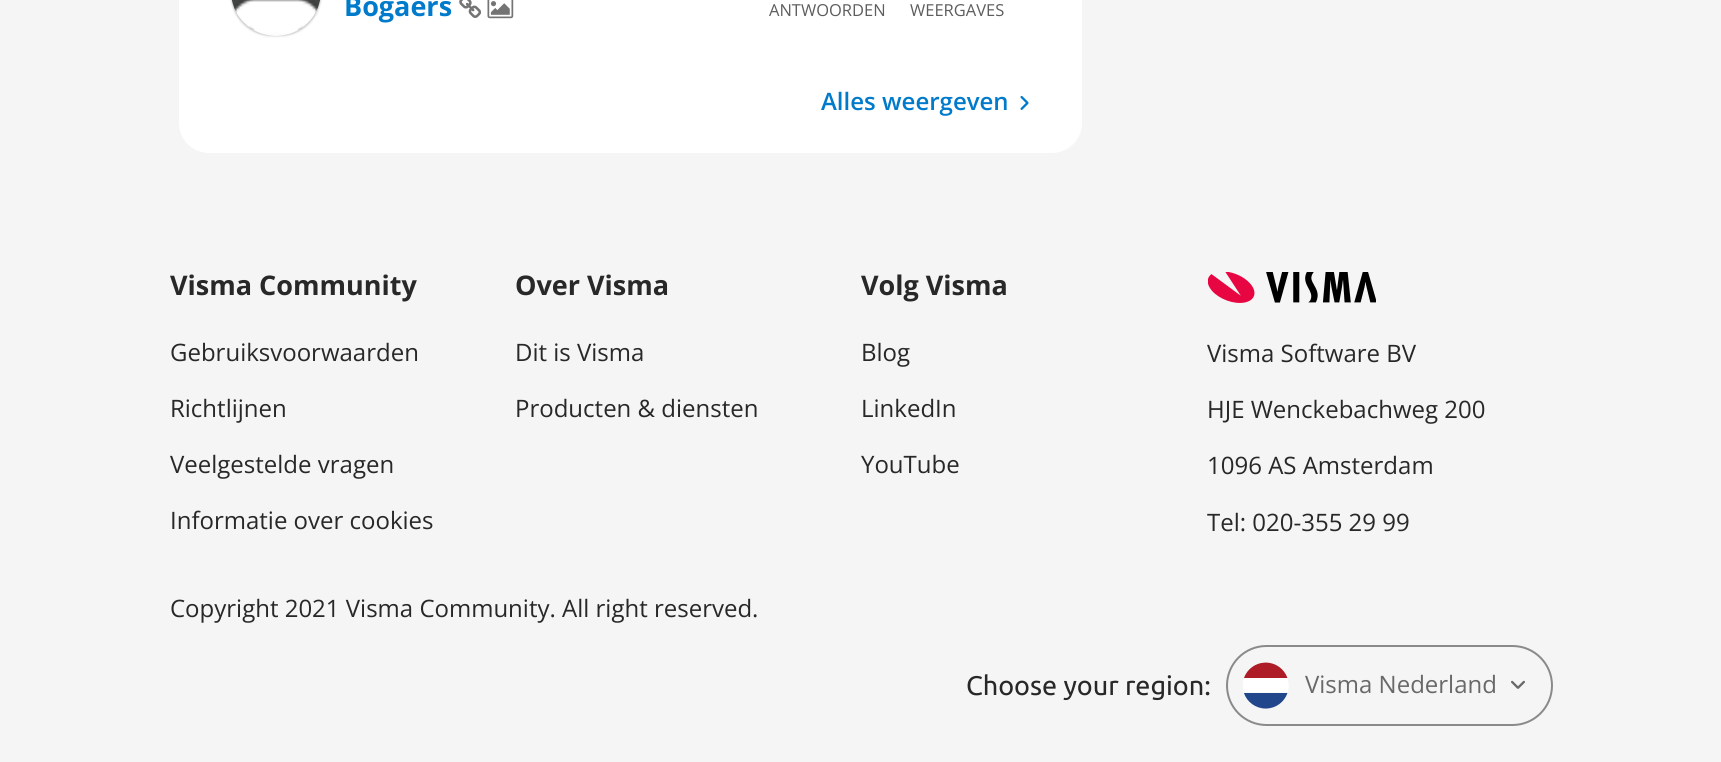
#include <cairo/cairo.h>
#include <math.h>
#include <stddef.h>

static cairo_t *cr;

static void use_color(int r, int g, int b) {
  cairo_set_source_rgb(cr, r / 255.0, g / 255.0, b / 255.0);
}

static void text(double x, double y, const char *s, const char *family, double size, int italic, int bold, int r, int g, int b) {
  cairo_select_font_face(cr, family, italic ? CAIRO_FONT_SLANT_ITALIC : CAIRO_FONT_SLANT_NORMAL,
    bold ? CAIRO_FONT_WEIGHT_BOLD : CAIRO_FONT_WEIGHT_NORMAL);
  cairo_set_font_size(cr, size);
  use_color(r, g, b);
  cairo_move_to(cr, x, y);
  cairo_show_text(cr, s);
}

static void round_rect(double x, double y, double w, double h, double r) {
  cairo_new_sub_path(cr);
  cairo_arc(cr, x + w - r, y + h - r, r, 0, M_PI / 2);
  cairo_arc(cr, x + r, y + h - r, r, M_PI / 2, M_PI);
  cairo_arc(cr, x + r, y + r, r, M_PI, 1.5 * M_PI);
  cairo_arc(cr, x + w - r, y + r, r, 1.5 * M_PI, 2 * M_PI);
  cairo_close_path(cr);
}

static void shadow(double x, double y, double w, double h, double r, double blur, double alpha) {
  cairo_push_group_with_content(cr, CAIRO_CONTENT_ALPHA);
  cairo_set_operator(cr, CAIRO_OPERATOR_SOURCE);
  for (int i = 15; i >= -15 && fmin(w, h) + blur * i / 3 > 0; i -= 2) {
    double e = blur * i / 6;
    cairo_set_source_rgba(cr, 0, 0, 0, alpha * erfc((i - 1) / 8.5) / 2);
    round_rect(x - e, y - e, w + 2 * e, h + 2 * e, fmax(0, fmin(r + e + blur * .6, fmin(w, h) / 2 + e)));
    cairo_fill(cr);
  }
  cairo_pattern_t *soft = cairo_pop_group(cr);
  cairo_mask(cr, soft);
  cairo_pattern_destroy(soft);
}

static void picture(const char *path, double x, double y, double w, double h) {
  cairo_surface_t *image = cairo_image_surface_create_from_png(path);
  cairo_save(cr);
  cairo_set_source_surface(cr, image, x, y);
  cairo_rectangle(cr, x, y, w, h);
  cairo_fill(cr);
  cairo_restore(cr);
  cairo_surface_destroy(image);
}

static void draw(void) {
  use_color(245, 245, 245);
  cairo_paint(cr);
  use_color(255, 255, 255);
  round_rect(179, -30, 903, 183, 30);
  cairo_fill(cr);
  use_color(196, 196, 196);
  shadow(231, -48, 90, 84, 45, 1, 1);
  picture("img_01.png", 231, 0, 90, 36);
  picture("img_02.png", 459, 0, 23, 18);
  picture("img_03.png", 487, 0, 27, 19);
  picture("img_04.png", 1020, 95, 9, 15);
  picture("img_05.png", 1208, 272, 168, 31);
  round_rect(1227, 646, 325, 79, 39.5);
  use_color(138, 138, 138);
  cairo_stroke(cr);
  picture("img_06.png", 1243, 662, 46, 47);
  picture("img_07.png", 1511, 680, 14, 9);
  text(344, 16, "Bogaers", "Open Sans", 27, 0, 1, 0, 122, 202);
  text(769, 16, "ANTWOORDEN", "Open Sans", 16.5, 0, 0, 93, 93, 93);
  text(910, 16, "WEERGAVES", "Open Sans", 16.5, 0, 0, 93, 93, 93);
  text(821, 110, "Alles weergeven", "Open Sans SemiBold", 24, 0, 0, 0, 122, 202);
  text(170, 295, "Visma Community", "Open Sans", 27, 0, 1, 40, 40, 40);
  text(170, 361, "Gebruiksvoorwaarden", "Open Sans", 24, 0, 0, 40, 40, 40);
  text(170, 417, "Richtlijnen", "Open Sans", 24, 0, 0, 40, 40, 40);
  text(170, 473, "Veelgestelde vragen", "Open Sans", 24, 0, 0, 40, 40, 40);
  text(170, 529, "Informatie over cookies", "Open Sans", 24, 0, 0, 40, 40, 40);
  text(515, 295, "Over Visma", "Open Sans", 27, 0, 1, 40, 40, 40);
  text(515, 361, "Dit is Visma", "Open Sans", 24, 0, 0, 40, 40, 40);
  text(515, 417, "Producten & diensten", "Open Sans", 24, 0, 0, 40, 40, 40);
  text(861, 295, "Volg Visma", "Open Sans", 27, 0, 1, 40, 40, 40);
  text(861, 361, "Blog", "Open Sans", 24, 0, 0, 40, 40, 40);
  text(861, 417, "LinkedIn", "Open Sans", 24, 0, 0, 40, 40, 40);
  text(861, 473, "YouTube", "Open Sans", 24, 0, 0, 40, 40, 40);
  text(1207, 362, "Visma Software BV", "Open Sans", 24, 0, 0, 40, 40, 40);
  text(1207, 418, "HJE Wenckebachweg 200", "Open Sans", 24, 0, 0, 40, 40, 40);
  text(1207, 474, "1096 AS Amsterdam", "Open Sans", 24, 0, 0, 40, 40, 40);
  text(1207, 531, "Tel: 020-355 29 99", "Open Sans", 24, 0, 0, 40, 40, 40);
  text(170, 617, "Copyright 2021 Visma Community. All right reserved.", "Open Sans", 24, 0, 0, 40, 40, 40);
  text(966, 695, "Choose your region:", "Ubuntu", 27, 0, 0, 40, 40, 40);
  text(1305, 693, "Visma Nederland", "Open Sans", 24, 0, 0, 105, 105, 105);
}

int main(void) {
  cairo_surface_t *surface = cairo_image_surface_create(CAIRO_FORMAT_RGB24, 1721, 762);
  cr = cairo_create(surface);
  cairo_font_options_t *options = cairo_font_options_create();
  cairo_font_options_set_hint_metrics(options, CAIRO_HINT_METRICS_OFF);
  cairo_font_options_set_hint_style(options, CAIRO_HINT_STYLE_NONE);
  cairo_set_font_options(cr, options);
  cairo_set_miter_limit(cr, 4);
  draw();
  cairo_surface_write_to_png(surface, "out.png");
  cairo_font_options_destroy(options);
  cairo_destroy(cr);
  cairo_surface_destroy(surface);
  return 0;
}
